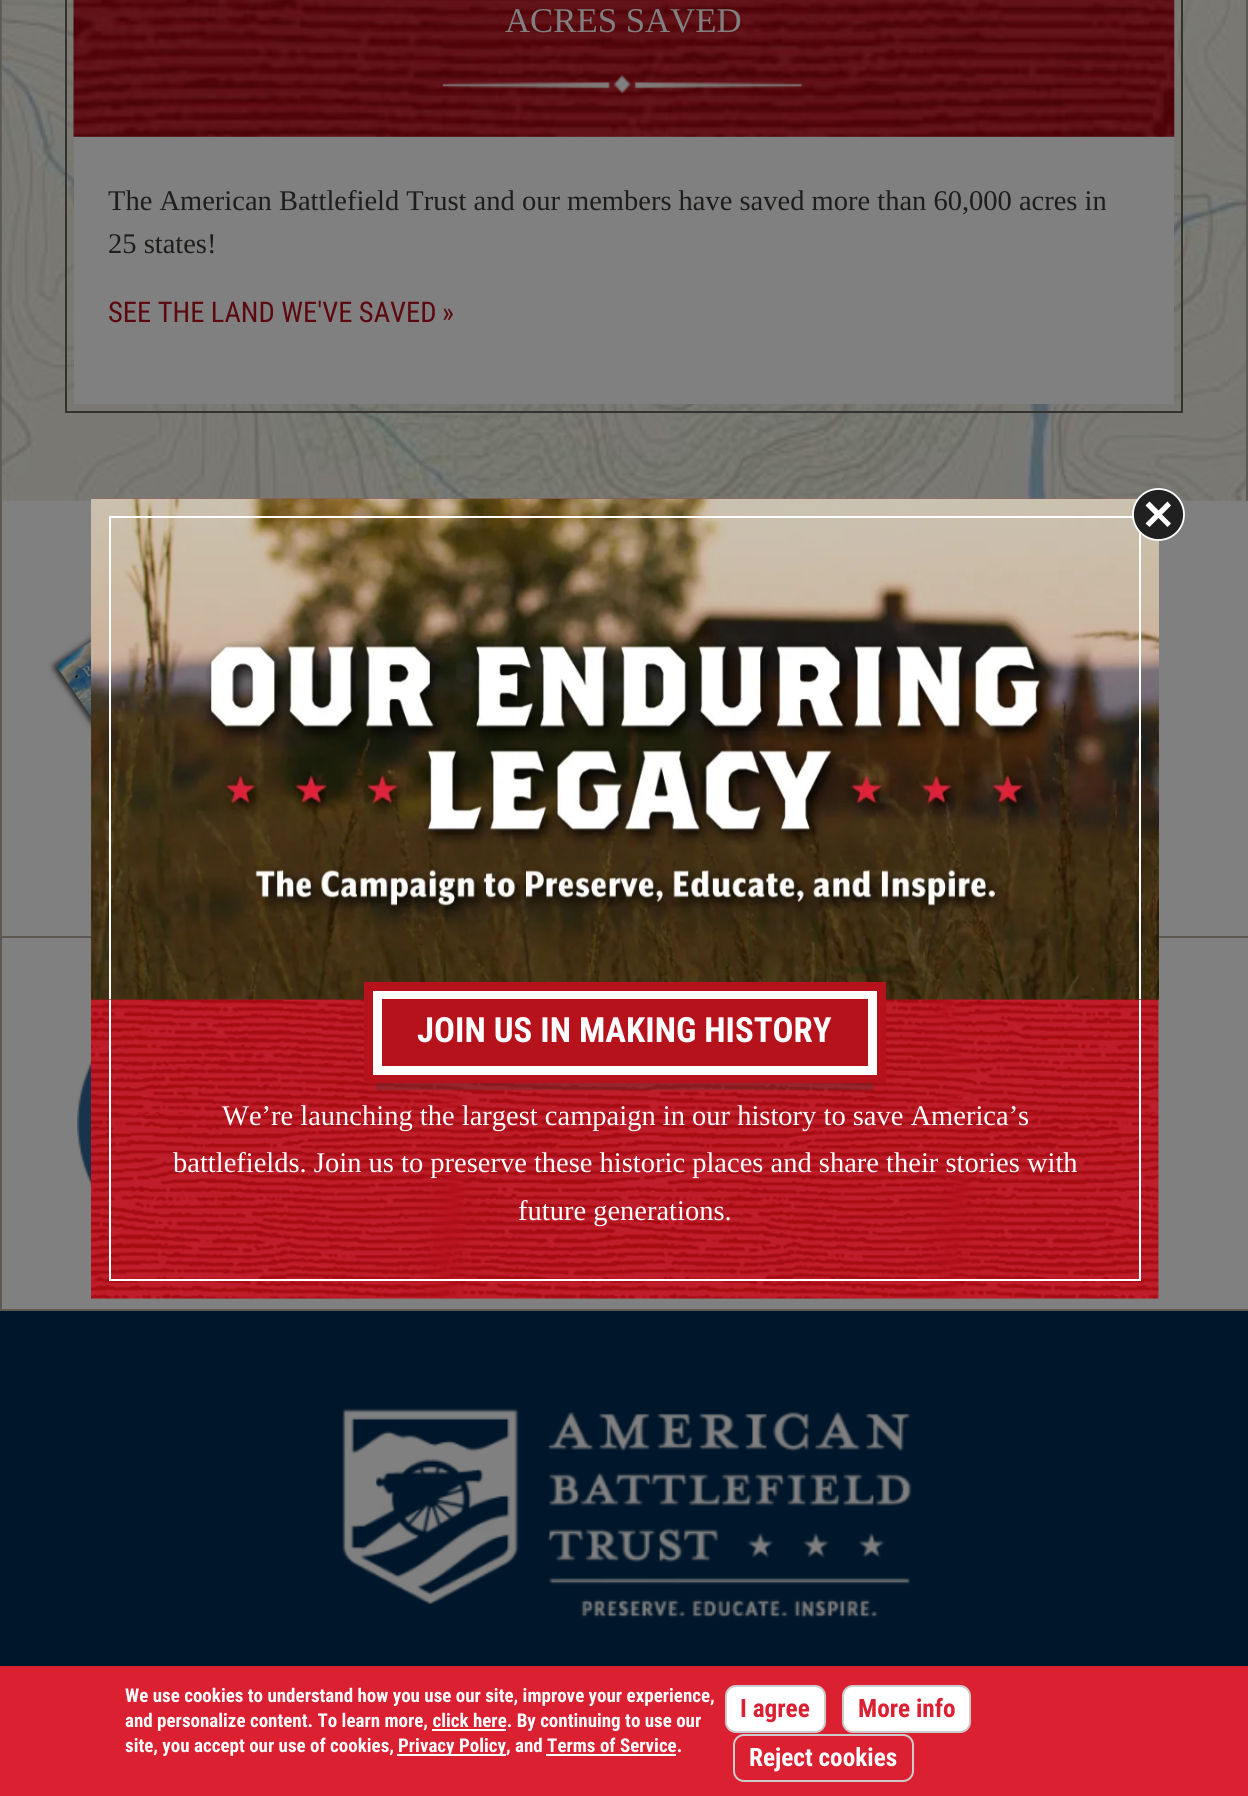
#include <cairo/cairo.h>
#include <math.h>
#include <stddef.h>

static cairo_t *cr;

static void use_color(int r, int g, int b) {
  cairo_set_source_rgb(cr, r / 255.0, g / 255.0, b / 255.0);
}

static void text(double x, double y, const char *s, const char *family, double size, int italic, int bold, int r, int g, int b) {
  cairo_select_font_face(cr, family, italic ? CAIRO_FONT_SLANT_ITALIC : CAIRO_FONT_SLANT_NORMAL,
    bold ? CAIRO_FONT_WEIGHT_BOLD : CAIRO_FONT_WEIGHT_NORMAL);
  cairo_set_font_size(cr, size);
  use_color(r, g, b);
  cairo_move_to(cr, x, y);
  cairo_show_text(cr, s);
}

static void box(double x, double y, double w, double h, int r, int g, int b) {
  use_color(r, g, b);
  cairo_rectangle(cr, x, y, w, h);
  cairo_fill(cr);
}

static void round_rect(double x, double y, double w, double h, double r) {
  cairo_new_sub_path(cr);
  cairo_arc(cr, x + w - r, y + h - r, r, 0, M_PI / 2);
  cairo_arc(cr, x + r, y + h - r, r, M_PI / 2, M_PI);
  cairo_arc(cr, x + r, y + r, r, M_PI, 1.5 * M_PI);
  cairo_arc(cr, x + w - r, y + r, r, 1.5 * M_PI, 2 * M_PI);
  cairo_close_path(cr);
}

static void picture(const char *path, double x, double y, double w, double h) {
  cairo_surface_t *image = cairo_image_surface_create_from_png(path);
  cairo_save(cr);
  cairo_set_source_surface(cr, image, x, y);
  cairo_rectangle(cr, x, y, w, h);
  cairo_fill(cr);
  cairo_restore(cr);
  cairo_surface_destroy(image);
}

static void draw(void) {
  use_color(128, 128, 128);
  cairo_paint(cr);
  cairo_rectangle(cr, 1, -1, 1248, 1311);
  use_color(91, 89, 82);
  cairo_stroke(cr);
  picture("img_01.png", 1, 0, 1245, 501);
  box(1246, 0, 2, 501, 91, 89, 82);
  cairo_rectangle(cr, 66, -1, 1116, 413);
  use_color(53, 51, 47);
  cairo_stroke(cr);
  picture("img_02.png", 73, 0, 1102, 137);
  picture("img_03.png", 442, 75, 360, 18);
  box(74, 137, 1100, 267, 128, 128, 128);
  box(2, 936, 1246, 2, 91, 89, 82);
  picture("img_04.png", 48, 564, 43, 312);
  picture("img_05.png", 77, 1057, 14, 133);
  picture("img_06.png", 91, 498, 1068, 801);
  box(1139, 999, 2, 282, 255, 255, 255);
  box(109, 1279, 1032, 2, 255, 255, 255);
  box(109, 999, 2, 282, 255, 255, 255);
  picture("img_07.png", 91, 498, 1068, 502);
  box(109, 516, 1032, 2, 255, 255, 255);
  box(1139, 532, 2, 467, 255, 255, 255);
  use_color(32, 32, 32);
  cairo_arc(cr, 1158.5, 514.5, 25.5, 0, 2 * M_PI);
  cairo_fill_preserve(cr);
  use_color(255, 255, 255);
  cairo_set_line_width(cr, 1.8);
  cairo_stroke(cr);
  cairo_set_fill_rule(cr, CAIRO_FILL_RULE_EVEN_ODD);
  cairo_new_path(cr);
  cairo_move_to(cr, 1171, 505.5);
  cairo_line_to(cr, 1162, 514.5);
  cairo_line_to(cr, 1171, 523.5);
  cairo_line_to(cr, 1167.5, 527);
  cairo_line_to(cr, 1158.5, 518);
  cairo_line_to(cr, 1149.5, 527);
  cairo_line_to(cr, 1145.5, 523.5);
  cairo_line_to(cr, 1154.5, 514.5);
  cairo_line_to(cr, 1145.5, 505.5);
  cairo_line_to(cr, 1149.5, 501.5);
  cairo_line_to(cr, 1158.5, 510.5);
  cairo_line_to(cr, 1167.5, 501.5);
  cairo_close_path(cr);
  cairo_fill(cr);
  box(109, 516, 2, 483, 255, 255, 255);
  cairo_set_source_rgba(cr, 0.235, 0.224, 0.212, 0.3);
  cairo_set_fill_rule(cr, CAIRO_FILL_RULE_WINDING);
  cairo_new_path(cr);
  cairo_move_to(cr, 376, 1013);
  cairo_line_to(cr, 376, 1090);
  cairo_line_to(cr, 873, 1090);
  cairo_line_to(cr, 873, 1013);
  cairo_line_to(cr, 868, 1013);
  cairo_line_to(cr, 868, 1066);
  cairo_line_to(cr, 382, 1066);
  cairo_line_to(cr, 382, 1013);
  cairo_close_path(cr);
  cairo_fill(cr);
  cairo_rectangle(cr, 373, 991, 504, 83);
  use_color(181, 18, 27);
  cairo_set_line_width(cr, 18);
  cairo_stroke(cr);
  cairo_rectangle(cr, 377.5, 995.5, 495, 75);
  use_color(255, 255, 255);
  cairo_set_line_width(cr, 9);
  cairo_stroke(cr);
  box(382, 999, 486, 66, 181, 18, 27);
  box(0, 1311, 1248, 355, 0, 22, 42);
  picture("img_08.png", 342, 1408, 570, 210);
  box(0, 1666, 1248, 130, 219, 32, 50);
  box(432, 1729, 74, 2, 255, 255, 255);
  box(397, 1754, 109, 2, 255, 255, 255);
  box(546, 1754, 130, 2, 255, 255, 255);
  round_rect(726, 1686, 99, 46, 10);
  cairo_fill_preserve(cr);
  use_color(205, 204, 204);
  cairo_set_line_width(cr, 2);
  cairo_stroke(cr);
  use_color(255, 255, 255);
  round_rect(843, 1686, 127, 46, 10);
  cairo_fill_preserve(cr);
  use_color(205, 204, 204);
  cairo_stroke(cr);
  round_rect(734, 1735, 179, 46, 10);
  cairo_stroke(cr);
  text(505, 32, "ACRES SAVED", "Liberation Serif", 34.75, 0, 0, 128, 128, 128);
  text(108, 210, "The American Battlefield Trust and our members have saved more than 60,000 acres in", "Liberation Serif", 28.5, 0, 0, 30, 29, 27);
  text(108, 253, "25 states!", "Liberation Serif", 28.5, 0, 0, 30, 29, 27);
  text(108, 322, "SEE THE LAND WE'VE SAVED", "Roboto Condensed", 28.5, 0, 0, 91, 9, 14);
  text(442, 322, "»", "Roboto Condensed", 28.5, 0, 0, 91, 9, 14);
  text(417, 1042, "JOIN US IN MAKING HISTORY", "Roboto Condensed", 34.75, 0, 1, 255, 255, 255);
  text(222, 1125, "We’re launching the largest campaign in our history to save America’s", "Liberation Serif", 28.5, 0, 0, 255, 255, 255);
  text(173, 1172, "battlefields. Join us to preserve these historic places and share their stories with", "Liberation Serif", 28.5, 0, 0, 255, 255, 255);
  text(518, 1220, "future generations.", "Liberation Serif", 28.5, 0, 0, 255, 255, 255);
  text(125, 1702, "We use cookies to understand how you use our site, improve your experience,", "Roboto Condensed", 19, 0, 1, 255, 255, 255);
  text(125, 1727, "and personalize content. To learn more, click here. By continuing to use our", "Roboto Condensed", 19, 0, 1, 255, 255, 255);
  text(125, 1752, "site, you accept our use of cookies,", "Roboto Condensed", 19, 0, 1, 255, 255, 255);
  text(398, 1752, "Privacy Policy, and Terms of Service.", "Roboto Condensed", 19, 0, 1, 255, 255, 255);
  text(740, 1717, "I agree", "Roboto Condensed", 25.25, 0, 1, 219, 32, 50);
  text(858, 1717, "More info", "Roboto Condensed", 25.25, 0, 1, 219, 32, 50);
  text(749, 1766, "Reject cookies", "Roboto Condensed", 25.25, 0, 1, 255, 255, 255);
}

int main(void) {
  cairo_surface_t *surface = cairo_image_surface_create(CAIRO_FORMAT_RGB24, 1248, 1796);
  cr = cairo_create(surface);
  cairo_font_options_t *options = cairo_font_options_create();
  cairo_font_options_set_hint_metrics(options, CAIRO_HINT_METRICS_OFF);
  cairo_font_options_set_hint_style(options, CAIRO_HINT_STYLE_NONE);
  cairo_set_font_options(cr, options);
  cairo_set_miter_limit(cr, 4);
  draw();
  cairo_surface_write_to_png(surface, "out.png");
  cairo_font_options_destroy(options);
  cairo_destroy(cr);
  cairo_surface_destroy(surface);
  return 0;
}
